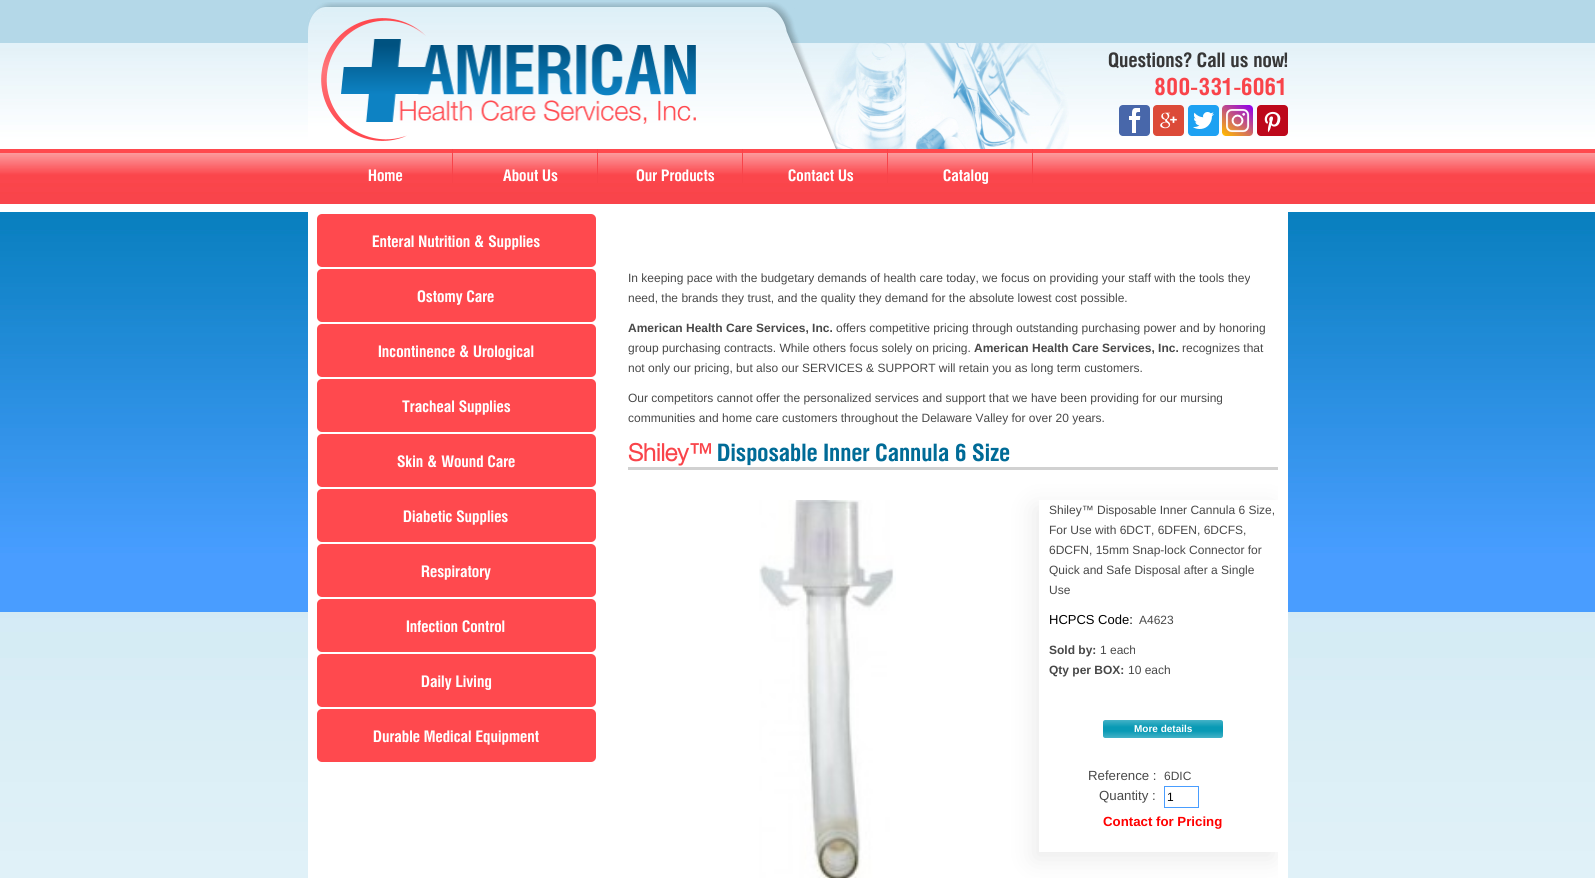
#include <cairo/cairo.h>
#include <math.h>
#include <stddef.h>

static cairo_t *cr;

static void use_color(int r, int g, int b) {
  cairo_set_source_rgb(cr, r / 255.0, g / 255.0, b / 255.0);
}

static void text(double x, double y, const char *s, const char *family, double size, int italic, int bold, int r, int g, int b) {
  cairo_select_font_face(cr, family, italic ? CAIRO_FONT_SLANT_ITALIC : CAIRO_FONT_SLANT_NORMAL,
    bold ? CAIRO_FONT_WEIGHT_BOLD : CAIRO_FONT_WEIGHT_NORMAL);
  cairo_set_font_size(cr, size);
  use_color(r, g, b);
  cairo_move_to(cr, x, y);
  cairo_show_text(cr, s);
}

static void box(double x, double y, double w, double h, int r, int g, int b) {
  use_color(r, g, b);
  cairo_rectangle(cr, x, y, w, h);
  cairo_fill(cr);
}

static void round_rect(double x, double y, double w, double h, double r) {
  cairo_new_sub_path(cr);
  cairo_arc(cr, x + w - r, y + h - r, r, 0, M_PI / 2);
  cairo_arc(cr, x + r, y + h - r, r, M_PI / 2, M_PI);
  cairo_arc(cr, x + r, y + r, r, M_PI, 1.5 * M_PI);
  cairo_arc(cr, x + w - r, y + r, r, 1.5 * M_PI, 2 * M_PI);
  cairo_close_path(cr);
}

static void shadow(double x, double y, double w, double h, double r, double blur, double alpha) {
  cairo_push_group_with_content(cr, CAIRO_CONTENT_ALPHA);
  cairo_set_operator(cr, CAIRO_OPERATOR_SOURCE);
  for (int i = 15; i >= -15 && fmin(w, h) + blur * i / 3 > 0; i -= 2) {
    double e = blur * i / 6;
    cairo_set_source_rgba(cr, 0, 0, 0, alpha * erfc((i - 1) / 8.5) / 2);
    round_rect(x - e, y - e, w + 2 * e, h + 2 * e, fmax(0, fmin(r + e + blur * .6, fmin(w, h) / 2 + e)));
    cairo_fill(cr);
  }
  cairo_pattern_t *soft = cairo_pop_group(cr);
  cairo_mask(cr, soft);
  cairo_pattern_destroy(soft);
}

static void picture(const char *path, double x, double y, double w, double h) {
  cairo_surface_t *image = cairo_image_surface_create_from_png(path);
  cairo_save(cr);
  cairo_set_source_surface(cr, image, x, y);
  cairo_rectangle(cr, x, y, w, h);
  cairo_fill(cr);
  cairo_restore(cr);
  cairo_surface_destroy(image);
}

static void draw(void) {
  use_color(255, 255, 255);
  cairo_paint(cr);
  picture("img_01.png", 0, 0, 1595, 878);
  picture("img_02.png", 308, 2, 761, 147);
  picture("img_03.png", 321, 18, 375, 123);
  picture("img_04.png", 1119, 105, 31, 31);
  picture("img_05.png", 1153, 105, 31, 31);
  picture("img_06.png", 1188, 105, 31, 31);
  picture("img_07.png", 1222, 105, 31, 31);
  picture("img_08.png", 1257, 105, 31, 31);
  box(452, 149, 1, 34, 248, 68, 74);
  box(597, 149, 1, 34, 248, 68, 74);
  box(742, 149, 1, 34, 248, 68, 74);
  box(887, 149, 1, 34, 248, 68, 74);
  box(1032, 149, 1, 34, 248, 68, 74);
  box(308, 212, 980, 666, 255, 255, 255);
  use_color(255, 73, 78);
  round_rect(317, 214, 279, 53, 5);
  cairo_fill(cr);
  round_rect(317, 269, 279, 53, 5);
  cairo_fill(cr);
  round_rect(317, 324, 279, 53, 5);
  cairo_fill(cr);
  round_rect(317, 379, 279, 53, 5);
  cairo_fill(cr);
  round_rect(317, 434, 279, 53, 5);
  cairo_fill(cr);
  round_rect(317, 489, 279, 53, 5);
  cairo_fill(cr);
  round_rect(317, 544, 279, 53, 5);
  cairo_fill(cr);
  round_rect(317, 599, 279, 53, 5);
  cairo_fill(cr);
  round_rect(317, 654, 279, 53, 5);
  cairo_fill(cr);
  round_rect(317, 709, 279, 53, 5);
  cairo_fill(cr);
  box(628, 467, 650, 3, 209, 209, 209);
  picture("img_09.png", 759, 500, 137, 378);
  cairo_save(cr);
  cairo_rectangle(cr, 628, 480, 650, 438);
  cairo_clip(cr);
  cairo_set_fill_rule(cr, CAIRO_FILL_RULE_EVEN_ODD);
  cairo_new_path(cr);
  cairo_move_to(cr, 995, 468);
  cairo_line_to(cr, 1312, 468);
  cairo_line_to(cr, 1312, 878);
  cairo_line_to(cr, 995, 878);
  cairo_close_path(cr);
  cairo_move_to(cr, 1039, 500);
  cairo_line_to(cr, 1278, 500);
  cairo_line_to(cr, 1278, 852);
  cairo_line_to(cr, 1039, 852);
  cairo_close_path(cr);
  cairo_clip(cr);
  use_color(235, 235, 235);
  shadow(1034, 507, 239, 352, 0, 12.5, 1);
  cairo_restore(cr);
  picture("img_10.png", 1103, 720, 120, 18);
  cairo_rectangle(cr, 1164.5, 786.5, 34, 21);
  use_color(73, 157, 255);
  cairo_set_line_width(cr, 1);
  cairo_stroke(cr);
  text(1108, 67, "Questions? Call us now!", "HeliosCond", 20, 0, 1, 55, 55, 55);
  text(1154, 95, "800-331-6061", "HeliosCond", 24, 0, 1, 249, 68, 74);
  text(368, 181, "Home", "HeliosCond", 16, 0, 1, 255, 255, 255);
  text(503, 181, "About Us", "HeliosCond", 16, 0, 1, 255, 255, 255);
  text(636, 181, "Our Products", "HeliosCond", 16, 0, 1, 255, 255, 255);
  text(788, 181, "Contact Us", "HeliosCond", 16, 0, 1, 255, 255, 255);
  text(943, 181, "Catalog", "HeliosCond", 16, 0, 1, 255, 255, 255);
  text(372, 247, "Enteral Nutrition & Supplies", "HeliosCond", 16, 0, 1, 255, 255, 255);
  text(417, 302, "Ostomy Care", "HeliosCond", 16, 0, 1, 255, 255, 255);
  text(378, 357, "Incontinence & Urological", "HeliosCond", 16, 0, 1, 255, 255, 255);
  text(402, 412, "Tracheal Supplies", "HeliosCond", 16, 0, 1, 255, 255, 255);
  text(397, 467, "Skin & Wound Care", "HeliosCond", 16, 0, 1, 255, 255, 255);
  text(403, 522, "Diabetic Supplies", "HeliosCond", 16, 0, 1, 255, 255, 255);
  text(421, 577, "Respiratory", "HeliosCond", 16, 0, 1, 255, 255, 255);
  text(406, 632, "Infection Control", "HeliosCond", 16, 0, 1, 255, 255, 255);
  text(421, 687, "Daily Living", "HeliosCond", 16, 0, 1, 255, 255, 255);
  text(373, 742, "Durable Medical Equipment", "HeliosCond", 16, 0, 1, 255, 255, 255);
  text(628, 282, "In keeping pace with the budgetary demands of health care today, we focus on providing your staff with the tools they", "Liberation Sans", 12, 0, 0, 72, 72, 72);
  text(628, 302, "need, the brands they trust, and the quality they demand for the absolute lowest cost possible.", "Liberation Sans", 12, 0, 0, 72, 72, 72);
  text(628, 332, "American Health Care Services, Inc.", "Liberation Sans", 12, 0, 1, 72, 72, 72);
  text(836, 332, "offers competitive pricing through outstanding purchasing power and by honoring", "Liberation Sans", 12, 0, 0, 72, 72, 72);
  text(628, 352, "group purchasing contracts. While others focus solely on pricing.", "Liberation Sans", 12, 0, 0, 72, 72, 72);
  text(974, 352, "American Health Care Services, Inc.", "Liberation Sans", 12, 0, 1, 72, 72, 72);
  text(1182, 352, "recognizes that", "Liberation Sans", 12, 0, 0, 72, 72, 72);
  text(628, 372, "not only our pricing, but also our SERVICES & SUPPORT will retain you as long term customers.", "Liberation Sans", 12, 0, 0, 72, 72, 72);
  text(628, 402, "Our competitors cannot offer the personalized services and support that we have been providing for our mursing", "Liberation Sans", 12, 0, 0, 72, 72, 72);
  text(628, 422, "communities and home care customers throughout the Delaware Valley for over 20 years.", "Liberation Sans", 12, 0, 0, 72, 72, 72);
  text(628, 461, "Shiley™", "Helvetica Neue", 24, 0, 1, 249, 68, 74);
  text(717, 461, "Disposable Inner Cannula 6 Size", "HeliosCond", 24, 0, 1, 0, 107, 151);
  text(1049, 514, "Shiley™ Disposable Inner Cannula 6 Size,", "Liberation Sans", 12, 0, 0, 72, 72, 72);
  text(1049, 534, "For Use with 6DCT, 6DFEN, 6DCFS,", "Liberation Sans", 12, 0, 0, 72, 72, 72);
  text(1049, 554, "6DCFN, 15mm Snap-lock Connector for", "Liberation Sans", 12, 0, 0, 72, 72, 72);
  text(1049, 574, "Quick and Safe Disposal after a Single", "Liberation Sans", 12, 0, 0, 72, 72, 72);
  text(1049, 594, "Use", "Liberation Sans", 12, 0, 0, 72, 72, 72);
  text(1049, 624, "HCPCS Code:", "Liberation Sans", 13, 0, 0, 0, 0, 0);
  text(1139, 624, "A4623", "Liberation Sans", 12, 0, 0, 72, 72, 72);
  text(1049, 654, "Sold by:", "Liberation Sans", 12, 0, 1, 72, 72, 72);
  text(1100, 654, "1 each", "Liberation Sans", 12, 0, 0, 72, 72, 72);
  text(1049, 674, "Qty per BOX:", "Liberation Sans", 12, 0, 1, 72, 72, 72);
  text(1128, 674, "10 each", "Liberation Sans", 12, 0, 0, 72, 72, 72);
  text(1134, 732, "More details", "Liberation Sans", 10, 0, 1, 255, 255, 255);
  text(1088, 780, "Reference :", "Liberation Sans", 13.25, 0, 0, 72, 72, 72);
  text(1164, 780, "6DIC", "Liberation Sans", 12, 0, 0, 72, 72, 72);
  text(1099, 800, "Quantity :", "Liberation Sans", 13.25, 0, 0, 72, 72, 72);
  text(1167, 801, "1", "Liberation Sans", 12, 0, 0, 0, 0, 0);
  text(1103, 826, "Contact for Pricing", "Liberation Sans", 13.25, 0, 1, 255, 0, 0);
}

int main(void) {
  cairo_surface_t *surface = cairo_image_surface_create(CAIRO_FORMAT_RGB24, 1595, 878);
  cr = cairo_create(surface);
  cairo_font_options_t *options = cairo_font_options_create();
  cairo_font_options_set_hint_metrics(options, CAIRO_HINT_METRICS_OFF);
  cairo_font_options_set_hint_style(options, CAIRO_HINT_STYLE_NONE);
  cairo_set_font_options(cr, options);
  cairo_set_miter_limit(cr, 4);
  draw();
  cairo_surface_write_to_png(surface, "out.png");
  cairo_font_options_destroy(options);
  cairo_destroy(cr);
  cairo_surface_destroy(surface);
  return 0;
}
